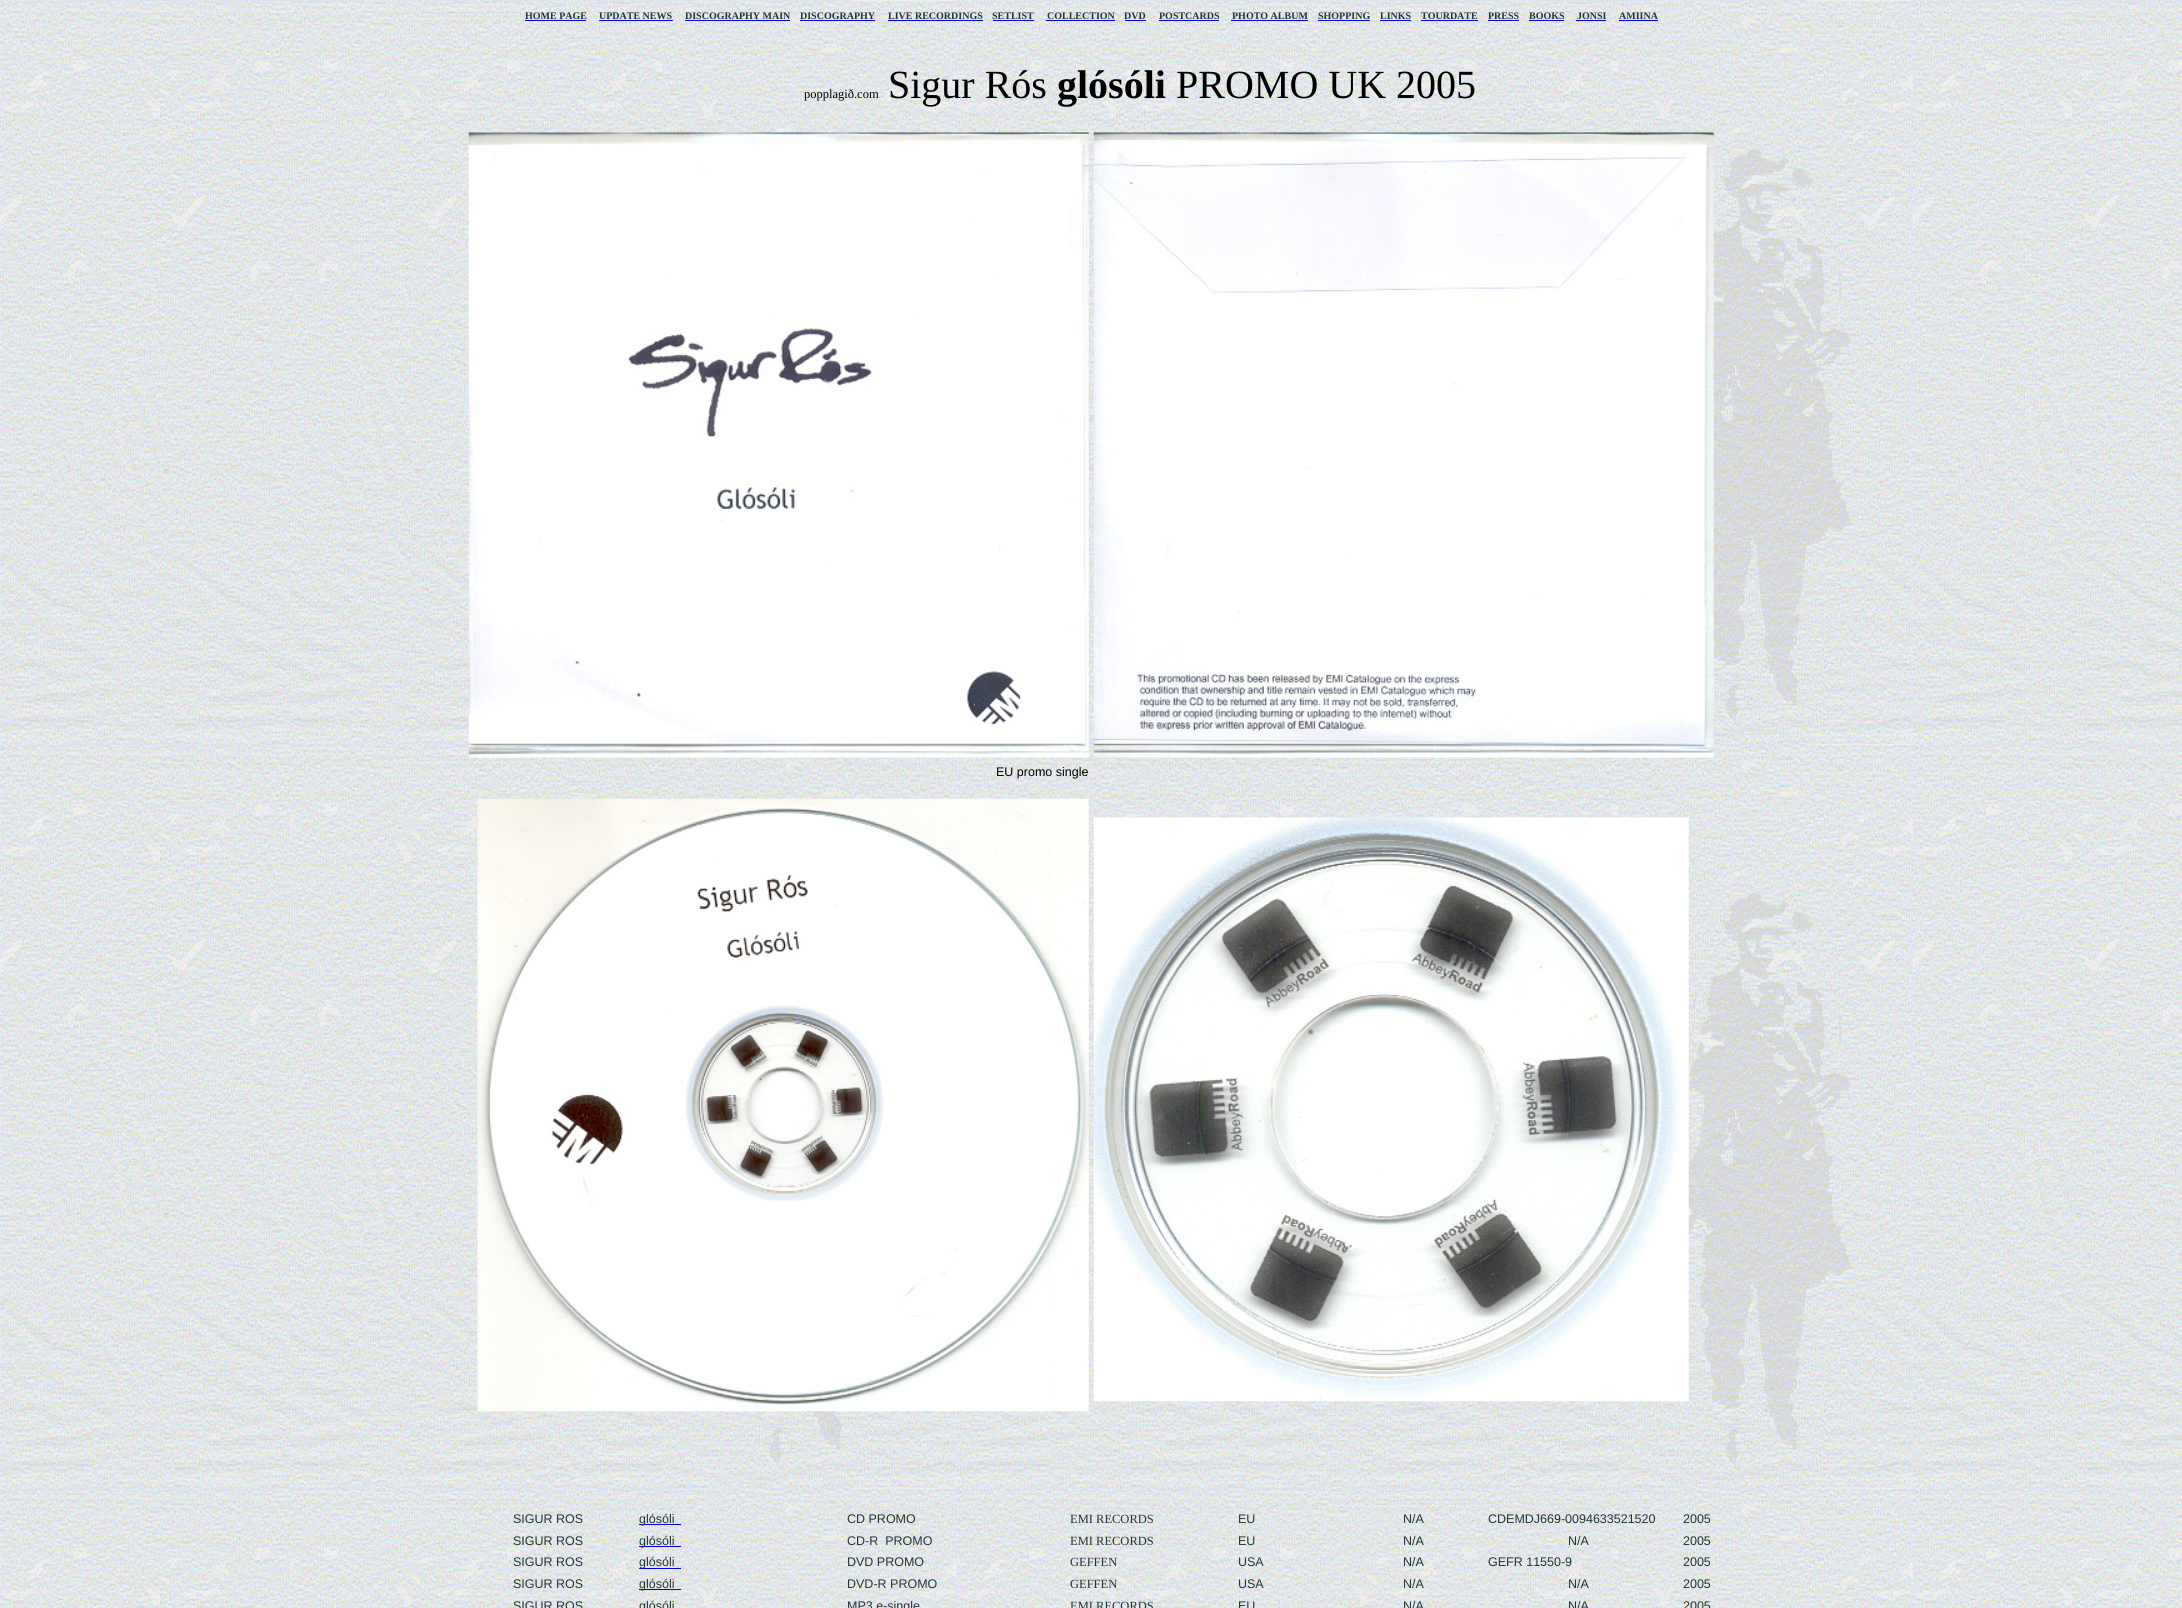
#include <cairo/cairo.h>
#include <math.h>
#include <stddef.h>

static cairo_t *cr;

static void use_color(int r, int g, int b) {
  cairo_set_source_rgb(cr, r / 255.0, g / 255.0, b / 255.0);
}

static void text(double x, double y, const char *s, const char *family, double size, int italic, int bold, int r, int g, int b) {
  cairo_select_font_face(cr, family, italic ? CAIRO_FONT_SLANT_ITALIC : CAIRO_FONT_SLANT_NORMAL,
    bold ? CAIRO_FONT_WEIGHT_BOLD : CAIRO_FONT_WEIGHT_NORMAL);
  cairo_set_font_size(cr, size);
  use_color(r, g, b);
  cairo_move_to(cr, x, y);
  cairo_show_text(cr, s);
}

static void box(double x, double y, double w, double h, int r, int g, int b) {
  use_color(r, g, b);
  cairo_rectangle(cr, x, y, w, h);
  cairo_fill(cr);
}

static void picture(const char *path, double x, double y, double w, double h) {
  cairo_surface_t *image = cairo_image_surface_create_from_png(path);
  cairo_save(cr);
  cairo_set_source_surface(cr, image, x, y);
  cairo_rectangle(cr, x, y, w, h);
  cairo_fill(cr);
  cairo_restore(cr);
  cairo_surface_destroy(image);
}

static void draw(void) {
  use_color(255, 255, 255);
  cairo_paint(cr);
  picture("img_01.png", 0, 0, 2182, 1608);
  box(525, 20, 61, 1, 0, 0, 238);
  box(599, 20, 74, 1, 0, 0, 238);
  box(685, 20, 105, 1, 0, 0, 238);
  box(800, 20, 75, 1, 0, 0, 238);
  box(888, 20, 95, 1, 0, 0, 238);
  box(993, 20, 41, 1, 0, 0, 238);
  box(1046, 20, 69, 1, 0, 0, 238);
  box(1125, 20, 21, 1, 0, 0, 238);
  box(1159, 20, 60, 1, 0, 0, 238);
  box(1231, 20, 77, 1, 0, 0, 238);
  box(1318, 20, 52, 1, 0, 0, 238);
  box(1380, 20, 31, 1, 0, 0, 238);
  box(1421, 20, 57, 1, 0, 0, 238);
  box(1488, 20, 31, 1, 0, 0, 238);
  box(1529, 20, 35, 1, 0, 0, 238);
  box(1576, 20, 30, 1, 0, 0, 238);
  box(1619, 20, 39, 1, 0, 0, 238);
  picture("img_02.png", 468, 132, 621, 626);
  picture("img_03.png", 1093, 132, 621, 626);
  picture("img_04.png", 477, 798, 612, 614);
  picture("img_05.png", 1093, 817, 596, 585);
  box(639, 1524, 42, 1, 0, 0, 238);
  box(639, 1546, 42, 1, 0, 0, 238);
  box(639, 1568, 42, 1, 0, 0, 238);
  box(639, 1589, 42, 1, 0, 0, 238);
  text(525, 19, "HOME PAGE", "Liberation Serif", 10, 0, 1, 32, 53, 52);
  text(599, 19, "UPDATE NEWS", "Liberation Serif", 10, 0, 1, 32, 53, 52);
  text(685, 19, "DISCOGRAPHY MAIN", "Liberation Serif", 10, 0, 1, 32, 53, 52);
  text(800, 19, "DISCOGRAPHY", "Liberation Serif", 10, 0, 1, 32, 53, 52);
  text(888, 19, "LIVE RECORDINGS", "Liberation Serif", 10, 0, 1, 32, 53, 52);
  text(992, 19, "SETLIST", "Liberation Serif", 10, 0, 1, 32, 53, 52);
  text(1047, 19, "COLLECTION", "Liberation Serif", 10, 0, 1, 32, 53, 52);
  text(1124, 19, "DVD", "Liberation Serif", 10, 0, 1, 32, 53, 52);
  text(1159, 19, "POSTCARDS", "Liberation Serif", 10, 0, 1, 32, 53, 52);
  text(1232, 19, "PHOTO ALBUM", "Liberation Serif", 10, 0, 1, 32, 53, 52);
  text(1318, 19, "SHOPPING", "Liberation Serif", 10, 0, 1, 32, 53, 52);
  text(1380, 19, "LINKS", "Liberation Serif", 10, 0, 1, 32, 53, 52);
  text(1421, 19, "TOURDATE", "Liberation Serif", 10, 0, 1, 32, 53, 52);
  text(1488, 19, "PRESS", "Liberation Serif", 10, 0, 1, 32, 53, 52);
  text(1529, 19, "BOOKS", "Liberation Serif", 10, 0, 1, 32, 53, 52);
  text(1577, 19, "JONSI", "Liberation Serif", 10, 0, 1, 32, 53, 52);
  text(1619, 19, "AMIINA", "Liberation Serif", 10, 0, 1, 32, 53, 52);
  text(804, 98, "popplagið.com", "Liberation Serif", 12.5, 0, 0, 0, 0, 0);
  text(888, 98, "Sigur Rós", "Liberation Serif", 40, 0, 0, 0, 0, 0);
  text(1057, 98, "glósóli", "Liberation Serif", 40, 0, 1, 0, 0, 0);
  text(1176, 98, "PROMO UK 2005", "Liberation Serif", 40, 0, 0, 0, 0, 0);
  text(996, 776, "EU promo single", "Liberation Sans", 12.5, 0, 0, 0, 0, 0);
  text(513, 1523, "SIGUR ROS", "Liberation Sans", 12.5, 0, 0, 32, 53, 52);
  text(639, 1523, "glósóli", "Liberation Sans", 12.5, 0, 0, 32, 53, 52);
  text(847, 1523, "CD PROMO", "Liberation Sans", 12.5, 0, 0, 32, 53, 52);
  text(1070, 1523, "EMI RECORDS", "Liberation Serif", 12.5, 0, 0, 32, 53, 52);
  text(1238, 1523, "EU", "Liberation Sans", 12.5, 0, 0, 32, 53, 52);
  text(1403, 1523, "N/A", "Liberation Sans", 12.5, 0, 0, 32, 53, 52);
  text(1488, 1523, "CDEMDJ669-0094633521520", "Liberation Sans", 12.5, 0, 0, 32, 53, 52);
  text(1683, 1523, "2005", "Liberation Sans", 12.5, 0, 0, 32, 53, 52);
  text(513, 1545, "SIGUR ROS", "Liberation Sans", 12.5, 0, 0, 32, 53, 52);
  text(639, 1545, "glósóli", "Liberation Sans", 12.5, 0, 0, 32, 53, 52);
  text(847, 1545, "CD-R  PROMO", "Liberation Sans", 12.5, 0, 0, 32, 53, 52);
  text(1070, 1545, "EMI RECORDS", "Liberation Serif", 12.5, 0, 0, 32, 53, 52);
  text(1238, 1545, "EU", "Liberation Sans", 12.5, 0, 0, 32, 53, 52);
  text(1403, 1545, "N/A", "Liberation Sans", 12.5, 0, 0, 32, 53, 52);
  text(1568, 1545, "N/A", "Liberation Sans", 12.5, 0, 0, 32, 53, 52);
  text(1683, 1545, "2005", "Liberation Sans", 12.5, 0, 0, 32, 53, 52);
  text(513, 1566, "SIGUR ROS", "Liberation Sans", 12.5, 0, 0, 32, 53, 52);
  text(639, 1566, "glósóli", "Liberation Sans", 12.5, 0, 0, 32, 53, 52);
  text(847, 1566, "DVD PROMO", "Liberation Sans", 12.5, 0, 0, 32, 53, 52);
  text(1070, 1566, "GEFFEN", "Liberation Serif", 12.5, 0, 0, 32, 53, 52);
  text(1238, 1566, "USA", "Liberation Sans", 12.5, 0, 0, 32, 53, 52);
  text(1403, 1566, "N/A", "Liberation Sans", 12.5, 0, 0, 32, 53, 52);
  text(1488, 1566, "GEFR 11550-9", "Liberation Sans", 12.5, 0, 0, 32, 53, 52);
  text(1683, 1566, "2005", "Liberation Sans", 12.5, 0, 0, 32, 53, 52);
  text(513, 1588, "SIGUR ROS", "Liberation Sans", 12.5, 0, 0, 32, 53, 52);
  text(639, 1588, "glósóli", "Liberation Sans", 12.5, 0, 0, 32, 53, 52);
  text(847, 1588, "DVD-R PROMO", "Liberation Sans", 12.5, 0, 0, 32, 53, 52);
  text(1070, 1588, "GEFFEN", "Liberation Serif", 12.5, 0, 0, 32, 53, 52);
  text(1238, 1588, "USA", "Liberation Sans", 12.5, 0, 0, 32, 53, 52);
  text(1403, 1588, "N/A", "Liberation Sans", 12.5, 0, 0, 32, 53, 52);
  text(1568, 1588, "N/A", "Liberation Sans", 12.5, 0, 0, 32, 53, 52);
  text(1683, 1588, "2005", "Liberation Sans", 12.5, 0, 0, 32, 53, 52);
  text(513, 1610, "SIGUR ROS", "Liberation Sans", 12.5, 0, 0, 32, 53, 52);
  text(639, 1610, "glósóli", "Liberation Sans", 12.5, 0, 0, 32, 53, 52);
  text(847, 1610, "MP3 e-single", "Liberation Sans", 12.5, 0, 0, 32, 53, 52);
  text(1070, 1610, "EMI RECORDS", "Liberation Serif", 12.5, 0, 0, 32, 53, 52);
  text(1238, 1610, "EU", "Liberation Sans", 12.5, 0, 0, 32, 53, 52);
  text(1403, 1610, "N/A", "Liberation Sans", 12.5, 0, 0, 32, 53, 52);
  text(1568, 1610, "N/A", "Liberation Sans", 12.5, 0, 0, 32, 53, 52);
  text(1683, 1610, "2005", "Liberation Sans", 12.5, 0, 0, 32, 53, 52);
}

int main(void) {
  cairo_surface_t *surface = cairo_image_surface_create(CAIRO_FORMAT_RGB24, 2182, 1608);
  cr = cairo_create(surface);
  cairo_font_options_t *options = cairo_font_options_create();
  cairo_font_options_set_hint_metrics(options, CAIRO_HINT_METRICS_OFF);
  cairo_font_options_set_hint_style(options, CAIRO_HINT_STYLE_NONE);
  cairo_set_font_options(cr, options);
  cairo_set_miter_limit(cr, 4);
  draw();
  cairo_surface_write_to_png(surface, "out.png");
  cairo_font_options_destroy(options);
  cairo_destroy(cr);
  cairo_surface_destroy(surface);
  return 0;
}
